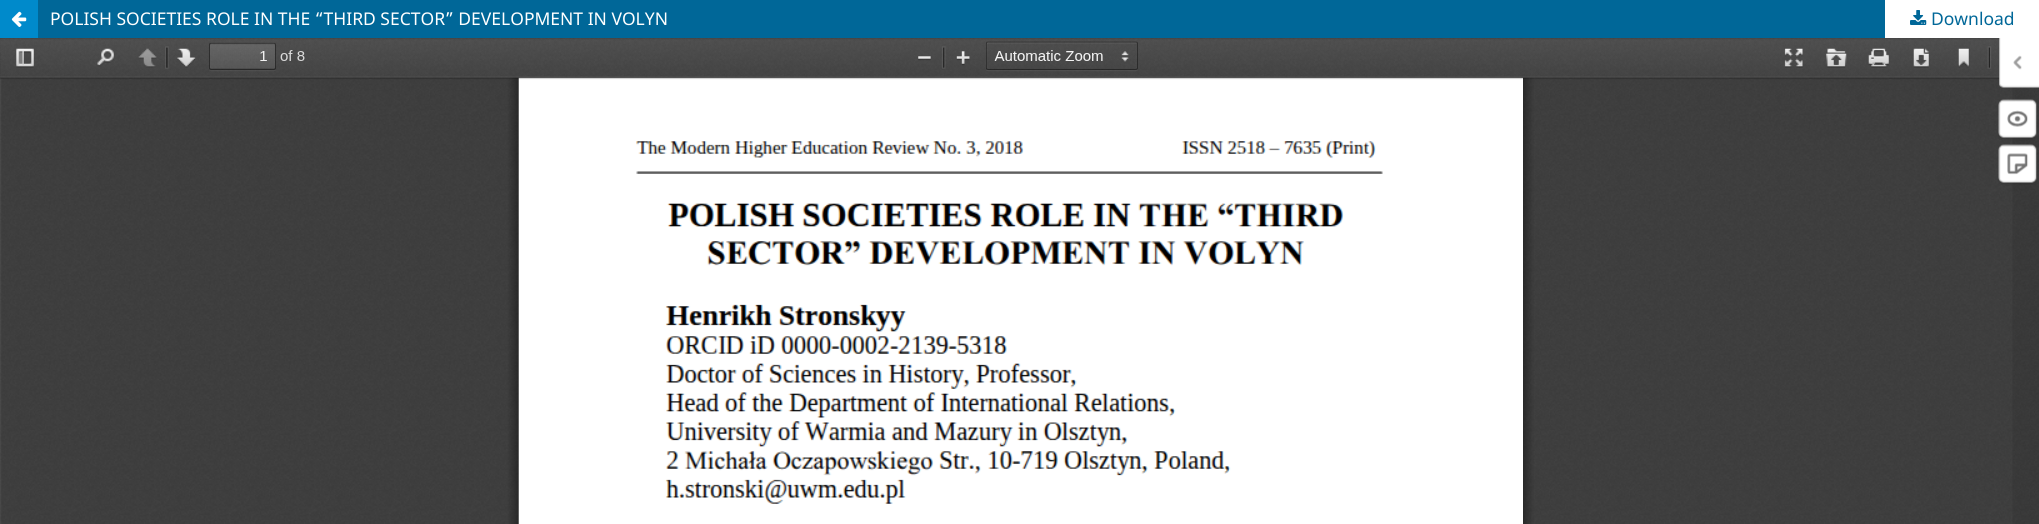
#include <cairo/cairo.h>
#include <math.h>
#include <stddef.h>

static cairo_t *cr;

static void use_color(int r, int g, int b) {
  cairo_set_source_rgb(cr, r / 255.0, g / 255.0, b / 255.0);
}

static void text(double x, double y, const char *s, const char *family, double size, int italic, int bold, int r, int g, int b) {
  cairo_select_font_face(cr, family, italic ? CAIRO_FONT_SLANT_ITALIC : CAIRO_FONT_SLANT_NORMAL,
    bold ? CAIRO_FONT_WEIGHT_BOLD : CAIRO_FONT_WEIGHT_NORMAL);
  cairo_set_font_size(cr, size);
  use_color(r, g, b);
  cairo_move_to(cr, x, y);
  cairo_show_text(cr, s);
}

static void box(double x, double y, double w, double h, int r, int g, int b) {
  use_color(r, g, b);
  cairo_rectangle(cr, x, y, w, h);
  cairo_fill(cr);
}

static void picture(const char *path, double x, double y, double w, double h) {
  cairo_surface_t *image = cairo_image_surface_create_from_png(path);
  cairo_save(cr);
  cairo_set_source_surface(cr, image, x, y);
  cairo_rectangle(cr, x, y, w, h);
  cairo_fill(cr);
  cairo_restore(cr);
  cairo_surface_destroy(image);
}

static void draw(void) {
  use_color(255, 255, 255);
  cairo_paint(cr);
  box(38, 0, 1847, 38, 0, 103, 152);
  box(0, 0, 38, 38, 0, 138, 203);
  picture("img_01.png", 11, 11, 16, 16);
  picture("img_02.png", 1910, 10, 17, 15);
  picture("img_03.png", 0, 38, 2039, 486);
  text(50, 25, "POLISH SOCIETIES ROLE IN THE “THIRD SECTOR” DEVELOPMENT IN VOLYN", "Noto Sans", 17.5, 0, 0, 255, 255, 255);
  text(1931, 25, "Download", "Noto Sans", 17.5, 0, 0, 0, 103, 152);
}

int main(void) {
  cairo_surface_t *surface = cairo_image_surface_create(CAIRO_FORMAT_RGB24, 2039, 524);
  cr = cairo_create(surface);
  cairo_font_options_t *options = cairo_font_options_create();
  cairo_font_options_set_hint_metrics(options, CAIRO_HINT_METRICS_OFF);
  cairo_font_options_set_hint_style(options, CAIRO_HINT_STYLE_NONE);
  cairo_set_font_options(cr, options);
  cairo_set_miter_limit(cr, 4);
  draw();
  cairo_surface_write_to_png(surface, "out.png");
  cairo_font_options_destroy(options);
  cairo_destroy(cr);
  cairo_surface_destroy(surface);
  return 0;
}
